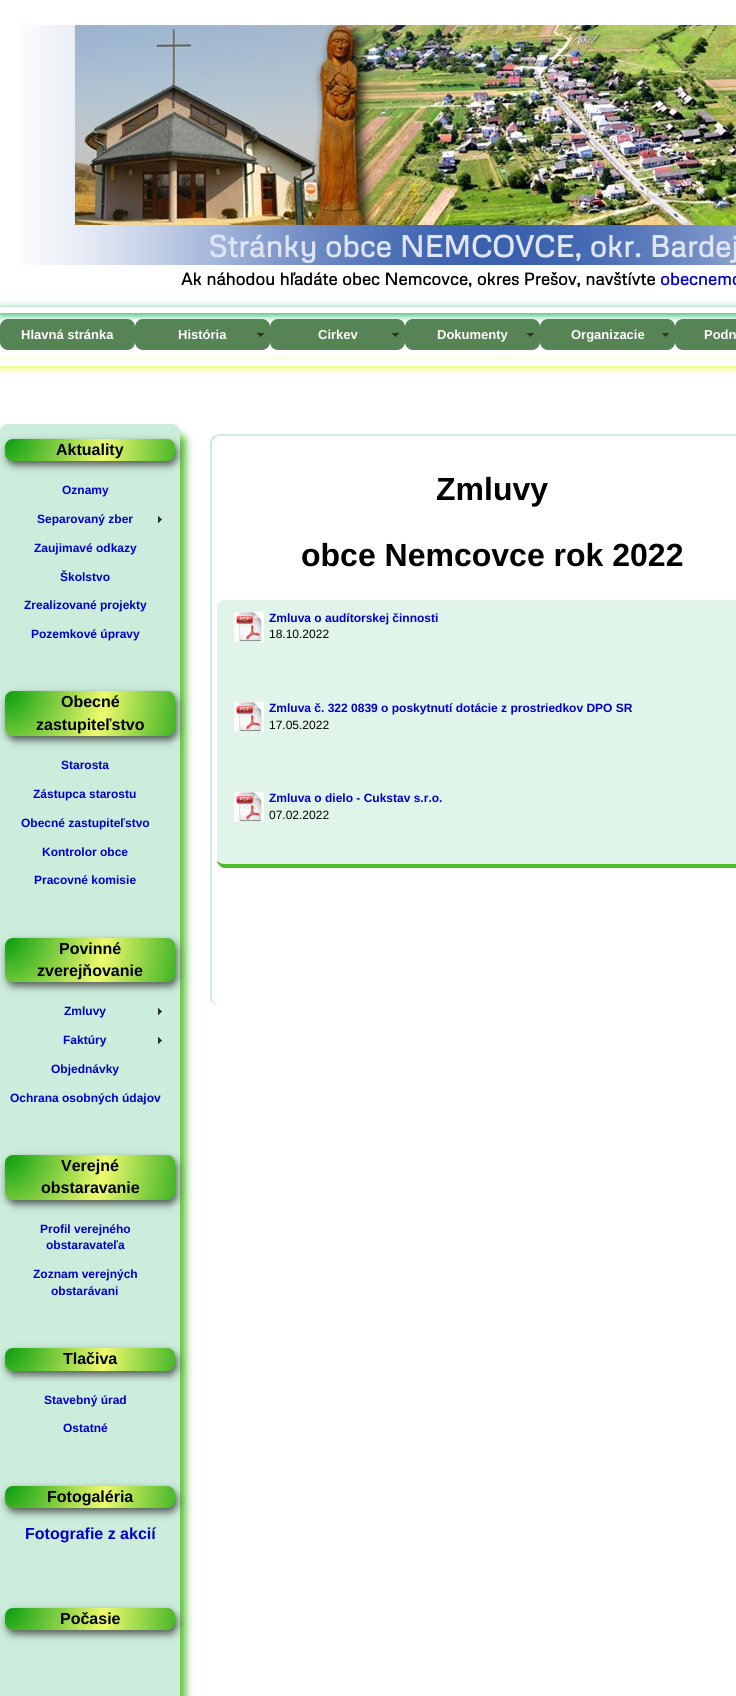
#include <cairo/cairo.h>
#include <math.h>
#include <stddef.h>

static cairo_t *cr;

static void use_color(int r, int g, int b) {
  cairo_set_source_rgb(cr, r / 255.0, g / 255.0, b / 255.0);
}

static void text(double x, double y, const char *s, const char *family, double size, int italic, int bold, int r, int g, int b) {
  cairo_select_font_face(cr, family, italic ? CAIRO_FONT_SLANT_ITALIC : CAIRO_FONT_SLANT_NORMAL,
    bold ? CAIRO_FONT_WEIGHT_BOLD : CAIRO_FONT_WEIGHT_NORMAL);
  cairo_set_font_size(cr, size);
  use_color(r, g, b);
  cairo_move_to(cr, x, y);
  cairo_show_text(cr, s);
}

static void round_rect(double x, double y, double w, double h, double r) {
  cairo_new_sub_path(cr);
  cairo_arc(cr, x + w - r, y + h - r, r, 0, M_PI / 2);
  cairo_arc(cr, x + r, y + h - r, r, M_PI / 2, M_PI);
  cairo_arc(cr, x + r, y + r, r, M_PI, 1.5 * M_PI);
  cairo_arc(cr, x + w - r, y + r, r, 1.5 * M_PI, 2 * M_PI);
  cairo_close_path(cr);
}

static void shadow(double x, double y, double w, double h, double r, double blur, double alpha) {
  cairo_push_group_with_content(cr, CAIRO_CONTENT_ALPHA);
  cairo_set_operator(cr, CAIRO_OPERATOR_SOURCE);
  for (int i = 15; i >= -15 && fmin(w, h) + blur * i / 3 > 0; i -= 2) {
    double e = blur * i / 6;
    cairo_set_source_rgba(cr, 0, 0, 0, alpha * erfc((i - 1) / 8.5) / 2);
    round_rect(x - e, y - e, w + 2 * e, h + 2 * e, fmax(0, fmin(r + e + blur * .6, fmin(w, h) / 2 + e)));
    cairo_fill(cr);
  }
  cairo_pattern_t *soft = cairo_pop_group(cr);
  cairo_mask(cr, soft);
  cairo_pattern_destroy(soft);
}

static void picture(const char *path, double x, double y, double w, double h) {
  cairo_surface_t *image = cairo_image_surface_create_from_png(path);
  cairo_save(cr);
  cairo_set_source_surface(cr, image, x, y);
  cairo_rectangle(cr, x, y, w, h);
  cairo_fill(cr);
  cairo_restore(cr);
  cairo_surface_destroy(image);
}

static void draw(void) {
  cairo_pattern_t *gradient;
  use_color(255, 255, 255);
  cairo_paint(cr);
  picture("img_01.png", 20, 25, 716, 240);
  picture("img_02.png", 75, 25, 661, 200);
  use_color(87, 132, 85);
  round_rect(0, 319, 135, 31, 8);
  cairo_fill(cr);
  round_rect(135, 319, 135, 31, 8);
  cairo_fill(cr);
  round_rect(270, 319, 135, 31, 8);
  cairo_fill(cr);
  round_rect(405, 319, 135, 31, 8);
  cairo_fill(cr);
  round_rect(540, 319, 135, 31, 8);
  cairo_fill(cr);
  round_rect(675, 319, 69, 31, 8);
  cairo_fill(cr);
  cairo_save(cr);
  cairo_set_fill_rule(cr, CAIRO_FILL_RULE_EVEN_ODD);
  cairo_new_path(cr);
  cairo_move_to(cr, 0, 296);
  cairo_line_to(cr, 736, 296);
  cairo_line_to(cr, 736, 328);
  cairo_line_to(cr, 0, 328);
  cairo_close_path(cr);
  cairo_move_to(cr, 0, 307);
  cairo_line_to(cr, 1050, 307);
  cairo_line_to(cr, 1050, 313);
  cairo_line_to(cr, 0, 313);
  cairo_close_path(cr);
  cairo_clip(cr);
  use_color(1, 169, 78);
  shadow(0, 309, 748, 6, 0, 4, 0.9);
  cairo_restore(cr);
  picture("img_03.png", 257, 333, 7, 4);
  picture("img_03.png", 392, 333, 7, 4);
  picture("img_03.png", 527, 333, 7, 4);
  picture("img_03.png", 662, 333, 7, 4);
  cairo_save(cr);
  cairo_set_fill_rule(cr, CAIRO_FILL_RULE_EVEN_ODD);
  cairo_new_path(cr);
  cairo_move_to(cr, 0, 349);
  cairo_line_to(cr, 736, 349);
  cairo_line_to(cr, 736, 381);
  cairo_line_to(cr, 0, 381);
  cairo_close_path(cr);
  cairo_move_to(cr, 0, 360);
  cairo_line_to(cr, 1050, 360);
  cairo_line_to(cr, 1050, 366);
  cairo_line_to(cr, 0, 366);
  cairo_close_path(cr);
  cairo_clip(cr);
  use_color(232, 248, 63);
  shadow(0, 362, 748, 6, 0, 4, 0.9);
  cairo_restore(cr);
  cairo_save(cr);
  cairo_set_fill_rule(cr, CAIRO_FILL_RULE_EVEN_ODD);
  cairo_new_path(cr);
  cairo_move_to(cr, 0, 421);
  cairo_line_to(cr, 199, 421);
  cairo_line_to(cr, 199, 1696);
  cairo_line_to(cr, 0, 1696);
  cairo_close_path(cr);
  cairo_move_to(cr, 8, 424);
  cairo_line_to(cr, 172, 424);
  cairo_curve_to(cr, 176.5, 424, 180, 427.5, 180, 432);
  cairo_line_to(cr, 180, 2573);
  cairo_curve_to(cr, 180, 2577.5, 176.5, 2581, 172, 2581);
  cairo_line_to(cr, 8, 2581);
  cairo_curve_to(cr, 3.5, 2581, 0, 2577.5, 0, 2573);
  cairo_line_to(cr, 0, 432);
  cairo_curve_to(cr, 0, 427.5, 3.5, 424, 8, 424);
  cairo_close_path(cr);
  cairo_clip(cr);
  use_color(79, 186, 44);
  shadow(6, 434, 180, 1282, 8, 4, 0.9);
  cairo_restore(cr);
  cairo_set_source_rgba(cr, 0.004, 0.663, 0.306, 0.2);
  round_rect(0, 424, 180, 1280, 8);
  cairo_fill(cr);
  use_color(51, 51, 51);
  shadow(7, 443, 170, 22, 8, 4, 0.8);
  gradient = cairo_pattern_create_radial(5, 439, 0, 5, 439, 200);
  cairo_pattern_add_color_stop_rgba(gradient, 0, 0.024, 0.616, 0.055, 1);
  cairo_pattern_add_color_stop_rgba(gradient, 0.5, 0.933, 0.98, 0.427, 1);
  cairo_pattern_add_color_stop_rgba(gradient, 1, 0.024, 0.616, 0.055, 1);
  cairo_set_source(cr, gradient);
  cairo_pattern_destroy(gradient);
  round_rect(5, 439, 170, 22, 8);
  cairo_fill(cr);
  picture("img_04.png", 158, 516, 4, 7);
  use_color(51, 51, 51);
  shadow(7, 695, 170, 45, 8, 4, 0.8);
  gradient = cairo_pattern_create_radial(5, 691, 0, 5, 691, 200);
  cairo_pattern_add_color_stop_rgba(gradient, 0, 0.024, 0.616, 0.055, 1);
  cairo_pattern_add_color_stop_rgba(gradient, 0.5, 0.933, 0.98, 0.427, 1);
  cairo_pattern_add_color_stop_rgba(gradient, 1, 0.024, 0.616, 0.055, 1);
  cairo_set_source(cr, gradient);
  cairo_pattern_destroy(gradient);
  round_rect(5, 691, 170, 45, 8);
  cairo_fill(cr);
  use_color(51, 51, 51);
  shadow(7, 942, 170, 44, 8, 4, 0.8);
  gradient = cairo_pattern_create_radial(5, 938, 0, 5, 938, 200);
  cairo_pattern_add_color_stop_rgba(gradient, 0, 0.024, 0.616, 0.055, 1);
  cairo_pattern_add_color_stop_rgba(gradient, 0.5, 0.933, 0.98, 0.427, 1);
  cairo_pattern_add_color_stop_rgba(gradient, 1, 0.024, 0.616, 0.055, 1);
  cairo_set_source(cr, gradient);
  cairo_pattern_destroy(gradient);
  round_rect(5, 938, 170, 44, 8);
  cairo_fill(cr);
  picture("img_04.png", 158, 1008, 4, 7);
  picture("img_04.png", 158, 1037, 4, 7);
  use_color(51, 51, 51);
  shadow(7, 1159, 170, 45, 8, 4, 0.8);
  gradient = cairo_pattern_create_radial(5, 1155, 0, 5, 1155, 200);
  cairo_pattern_add_color_stop_rgba(gradient, 0, 0.024, 0.616, 0.055, 1);
  cairo_pattern_add_color_stop_rgba(gradient, 0.5, 0.933, 0.98, 0.427, 1);
  cairo_pattern_add_color_stop_rgba(gradient, 1, 0.024, 0.616, 0.055, 1);
  cairo_set_source(cr, gradient);
  cairo_pattern_destroy(gradient);
  round_rect(5, 1155, 170, 45, 8);
  cairo_fill(cr);
  use_color(51, 51, 51);
  shadow(7, 1352, 170, 23, 8, 4, 0.8);
  gradient = cairo_pattern_create_radial(5, 1348, 0, 5, 1348, 200);
  cairo_pattern_add_color_stop_rgba(gradient, 0, 0.024, 0.616, 0.055, 1);
  cairo_pattern_add_color_stop_rgba(gradient, 0.5, 0.933, 0.98, 0.427, 1);
  cairo_pattern_add_color_stop_rgba(gradient, 1, 0.024, 0.616, 0.055, 1);
  cairo_set_source(cr, gradient);
  cairo_pattern_destroy(gradient);
  round_rect(5, 1348, 170, 23, 8);
  cairo_fill(cr);
  use_color(51, 51, 51);
  shadow(7, 1490, 170, 22, 8, 4, 0.8);
  gradient = cairo_pattern_create_radial(5, 1486, 0, 5, 1486, 200);
  cairo_pattern_add_color_stop_rgba(gradient, 0, 0.024, 0.616, 0.055, 1);
  cairo_pattern_add_color_stop_rgba(gradient, 0.5, 0.933, 0.98, 0.427, 1);
  cairo_pattern_add_color_stop_rgba(gradient, 1, 0.024, 0.616, 0.055, 1);
  cairo_set_source(cr, gradient);
  cairo_pattern_destroy(gradient);
  round_rect(5, 1486, 170, 22, 8);
  cairo_fill(cr);
  use_color(51, 51, 51);
  shadow(7, 1612, 170, 22, 8, 4, 0.8);
  gradient = cairo_pattern_create_radial(5, 1608, 0, 5, 1608, 200);
  cairo_pattern_add_color_stop_rgba(gradient, 0, 0.024, 0.616, 0.055, 1);
  cairo_pattern_add_color_stop_rgba(gradient, 0.5, 0.933, 0.98, 0.427, 1);
  cairo_pattern_add_color_stop_rgba(gradient, 1, 0.024, 0.616, 0.055, 1);
  cairo_set_source(cr, gradient);
  cairo_pattern_destroy(gradient);
  round_rect(5, 1608, 170, 22, 8);
  cairo_fill(cr);
  use_color(204, 238, 220);
  cairo_set_fill_rule(cr, CAIRO_FILL_RULE_EVEN_ODD);
  cairo_new_path(cr);
  cairo_move_to(cr, 220, 434);
  cairo_line_to(cr, 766, 434);
  cairo_curve_to(cr, 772, 434, 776, 438, 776, 444);
  cairo_line_to(cr, 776, 996);
  cairo_curve_to(cr, 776, 1002, 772, 1006, 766, 1006);
  cairo_line_to(cr, 220, 1006);
  cairo_curve_to(cr, 214, 1006, 210, 1002, 210, 996);
  cairo_line_to(cr, 210, 444);
  cairo_curve_to(cr, 210, 438, 214, 434, 220, 434);
  cairo_close_path(cr);
  cairo_move_to(cr, 220, 436);
  cairo_line_to(cr, 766, 436);
  cairo_curve_to(cr, 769, 436, 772, 440, 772, 444);
  cairo_line_to(cr, 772, 996);
  cairo_curve_to(cr, 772, 1002, 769, 1006, 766, 1006);
  cairo_line_to(cr, 220, 1006);
  cairo_curve_to(cr, 216, 1006, 212, 1002, 212, 996);
  cairo_line_to(cr, 212, 444);
  cairo_curve_to(cr, 212, 440, 216, 436, 220, 436);
  cairo_close_path(cr);
  cairo_fill(cr);
  use_color(224, 244, 233);
  round_rect(217, 600, 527, 268, 8);
  cairo_fill(cr);
  use_color(79, 186, 44);
  cairo_new_path(cr);
  cairo_move_to(cr, 225, 600);
  cairo_line_to(cr, 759, 600);
  cairo_curve_to(cr, 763, 600, 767, 604, 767, 608);
  cairo_line_to(cr, 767, 860);
  cairo_curve_to(cr, 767, 864, 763, 868, 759, 868);
  cairo_line_to(cr, 225, 868);
  cairo_curve_to(cr, 221, 868, 217, 864, 217, 860);
  cairo_line_to(cr, 217, 608);
  cairo_curve_to(cr, 217, 604, 221, 600, 225, 600);
  cairo_close_path(cr);
  cairo_move_to(cr, 225, 600);
  cairo_line_to(cr, 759, 600);
  cairo_curve_to(cr, 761, 600, 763, 604, 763, 608);
  cairo_line_to(cr, 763, 860);
  cairo_curve_to(cr, 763, 862, 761, 864, 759, 864);
  cairo_line_to(cr, 225, 864);
  cairo_curve_to(cr, 221, 864, 217, 862, 217, 860);
  cairo_line_to(cr, 217, 608);
  cairo_curve_to(cr, 217, 604, 221, 600, 225, 600);
  cairo_close_path(cr);
  cairo_fill(cr);
  picture("img_05.png", 234, 612, 30, 30);
  picture("img_05.png", 234, 702, 30, 30);
  picture("img_05.png", 234, 792, 30, 30);
  text(208, 257, "Stránky obce NEMCOVCE, okr. Bardej", "Metrophobic", 30, 0, 1, 223, 229, 242);
  text(181, 285, "Ak náhodou hľadáte obec Nemcovce, okres Prešov, navštívte", "Metrophobic", 17, 0, 1, 0, 0, 0);
  text(660, 285, "obecnemc", "Metrophobic", 17, 0, 1, 0, 0, 204);
  text(21, 339, "Hlavná stránka", "Liberation Sans", 13, 0, 1, 255, 255, 255);
  text(178, 339, "História", "Liberation Sans", 13, 0, 1, 255, 255, 255);
  text(318, 339, "Cirkev", "Liberation Sans", 13, 0, 1, 255, 255, 255);
  text(437, 339, "Dokumenty", "Liberation Sans", 13, 0, 1, 255, 255, 255);
  text(571, 339, "Organizacie", "Liberation Sans", 13, 0, 1, 255, 255, 255);
  text(704, 339, "Podn", "Liberation Sans", 13, 0, 1, 255, 255, 255);
  text(56, 455, "Aktuality", "Liberation Sans", 16, 0, 1, 0, 0, 0);
  text(62, 494, "Oznamy", "Liberation Sans", 12, 0, 1, 0, 0, 204);
  text(37, 523, "Separovaný zber", "Liberation Sans", 12, 0, 1, 0, 0, 204);
  text(34, 552, "Zaujimavé odkazy", "Liberation Sans", 12, 0, 1, 0, 0, 204);
  text(60, 581, "Školstvo", "Liberation Sans", 12, 0, 1, 0, 0, 204);
  text(24, 609, "Zrealizované projekty", "Liberation Sans", 12, 0, 1, 0, 0, 204);
  text(31, 638, "Pozemkové úpravy", "Liberation Sans", 12, 0, 1, 0, 0, 204);
  text(61, 707, "Obecné", "Liberation Sans", 16, 0, 1, 0, 0, 0);
  text(36, 730, "zastupiteľstvo", "Liberation Sans", 16, 0, 1, 0, 0, 0);
  text(61, 769, "Starosta", "Liberation Sans", 12, 0, 1, 0, 0, 204);
  text(33, 798, "Zástupca starostu", "Liberation Sans", 12, 0, 1, 0, 0, 204);
  text(21, 827, "Obecné zastupiteľstvo", "Liberation Sans", 12, 0, 1, 0, 0, 204);
  text(42, 856, "Kontrolor obce", "Liberation Sans", 12, 0, 1, 0, 0, 204);
  text(34, 884, "Pracovné komisie", "Liberation Sans", 12, 0, 1, 0, 0, 204);
  text(59, 954, "Povinné", "Liberation Sans", 16, 0, 1, 0, 0, 0);
  text(37, 976, "zverejňovanie", "Liberation Sans", 16, 0, 1, 0, 0, 0);
  text(64, 1015, "Zmluvy", "Liberation Sans", 12, 0, 1, 0, 0, 204);
  text(63, 1044, "Faktúry", "Liberation Sans", 12, 0, 1, 0, 0, 204);
  text(51, 1073, "Objednávky", "Liberation Sans", 12, 0, 1, 0, 0, 204);
  text(10, 1102, "Ochrana osobných údajov", "Liberation Sans", 12, 0, 1, 0, 0, 204);
  text(61, 1171, "Verejné", "Liberation Sans", 16, 0, 1, 0, 0, 0);
  text(41, 1193, "obstaravanie", "Liberation Sans", 16, 0, 1, 0, 0, 0);
  text(40, 1233, "Profil verejného", "Liberation Sans", 12, 0, 1, 0, 0, 204);
  text(46, 1249, "obstaravateľa", "Liberation Sans", 12, 0, 1, 0, 0, 204);
  text(33, 1278, "Zoznam verejných", "Liberation Sans", 12, 0, 1, 0, 0, 204);
  text(51, 1295, "obstarávani", "Liberation Sans", 12, 0, 1, 0, 0, 204);
  text(63, 1364, "Tlačiva", "Liberation Sans", 16, 0, 1, 0, 0, 0);
  text(44, 1404, "Stavebný úrad", "Liberation Sans", 12, 0, 1, 0, 0, 204);
  text(63, 1432, "Ostatné", "Liberation Sans", 12, 0, 1, 0, 0, 204);
  text(47, 1502, "Fotogaléria", "Liberation Sans", 16, 0, 1, 0, 0, 0);
  text(25, 1539, "Fotografie z akcií", "Liberation Sans", 16, 0, 1, 0, 0, 204);
  text(60, 1624, "Počasie", "Liberation Sans", 16, 0, 1, 0, 0, 0);
  text(436, 500, "Zmluvy", "Liberation Sans", 32, 0, 1, 0, 0, 0);
  text(301, 566, "obce Nemcovce rok 2022", "Liberation Sans", 32, 0, 1, 0, 0, 0);
  text(269, 622, "Zmluva o audítorskej činnosti", "Liberation Sans", 12, 0, 1, 0, 0, 204);
  text(269, 638, "18.10.2022", "Liberation Sans", 12, 0, 0, 0, 0, 0);
  text(269, 712, "Zmluva č. 322 0839 o poskytnutí dotácie z prostriedkov DPO SR", "Liberation Sans", 12, 0, 1, 0, 0, 204);
  text(269, 729, "17.05.2022", "Liberation Sans", 12, 0, 0, 0, 0, 0);
  text(269, 802, "Zmluva o dielo - Cukstav s.r.o.", "Liberation Sans", 12, 0, 1, 0, 0, 204);
  text(269, 819, "07.02.2022", "Liberation Sans", 12, 0, 0, 0, 0, 0);
}

int main(void) {
  cairo_surface_t *surface = cairo_image_surface_create(CAIRO_FORMAT_RGB24, 736, 1696);
  cr = cairo_create(surface);
  cairo_font_options_t *options = cairo_font_options_create();
  cairo_font_options_set_hint_metrics(options, CAIRO_HINT_METRICS_OFF);
  cairo_font_options_set_hint_style(options, CAIRO_HINT_STYLE_NONE);
  cairo_set_font_options(cr, options);
  cairo_set_miter_limit(cr, 4);
  draw();
  cairo_surface_write_to_png(surface, "out.png");
  cairo_font_options_destroy(options);
  cairo_destroy(cr);
  cairo_surface_destroy(surface);
  return 0;
}
